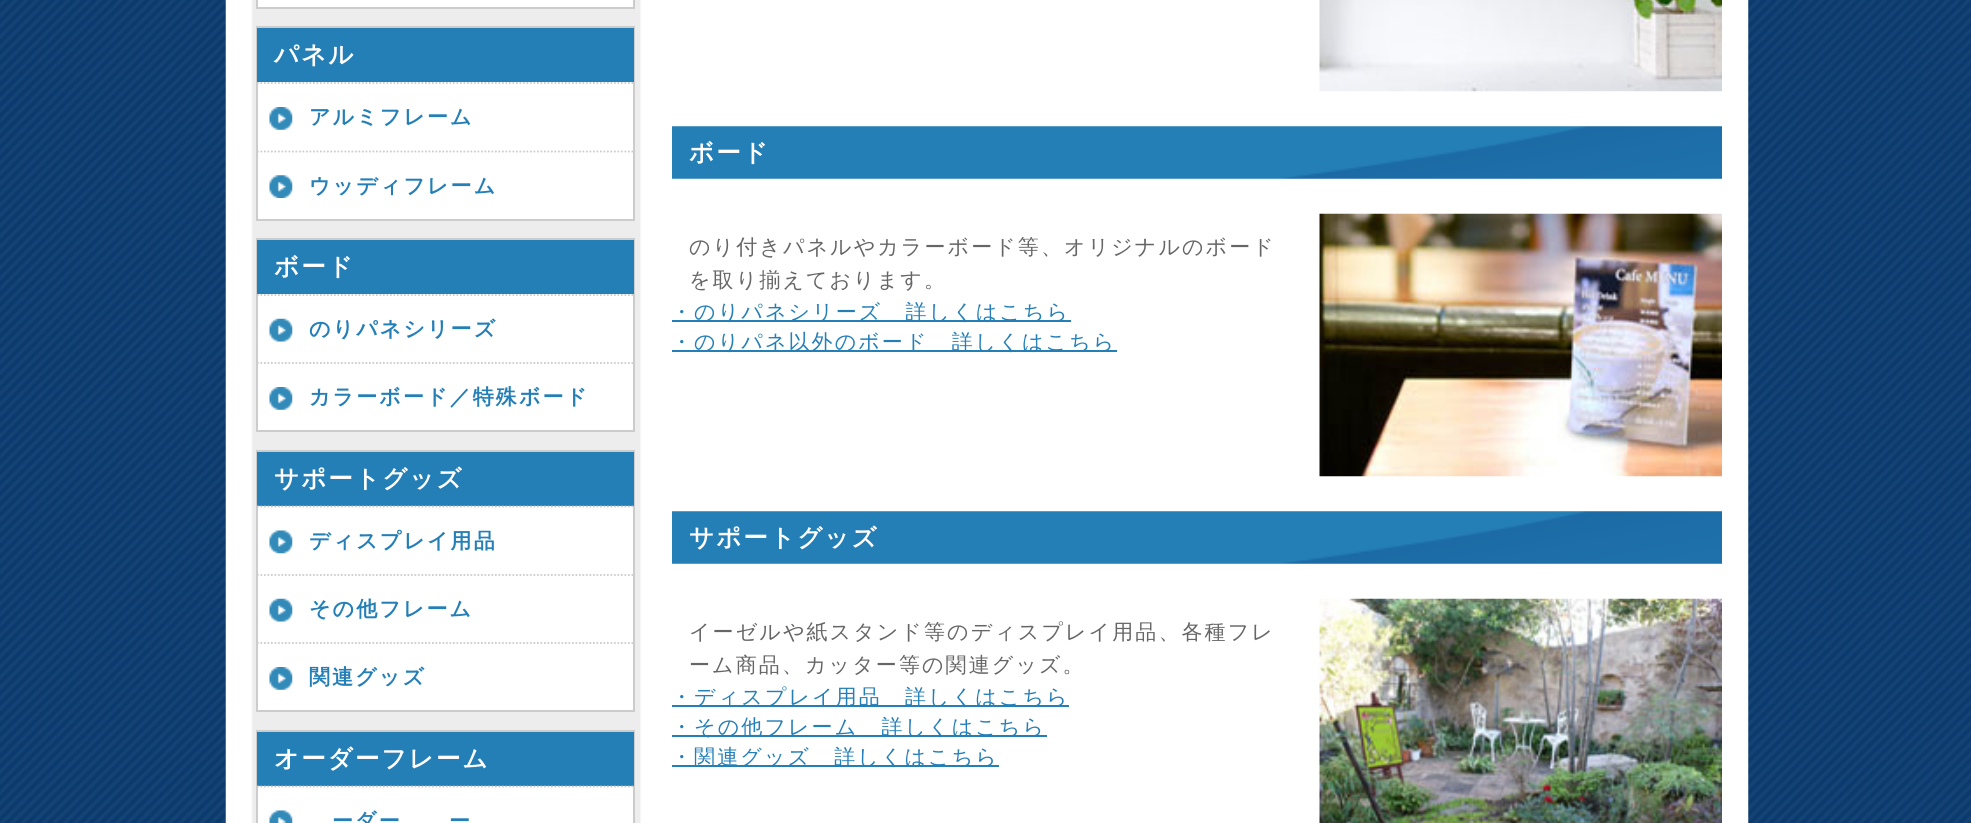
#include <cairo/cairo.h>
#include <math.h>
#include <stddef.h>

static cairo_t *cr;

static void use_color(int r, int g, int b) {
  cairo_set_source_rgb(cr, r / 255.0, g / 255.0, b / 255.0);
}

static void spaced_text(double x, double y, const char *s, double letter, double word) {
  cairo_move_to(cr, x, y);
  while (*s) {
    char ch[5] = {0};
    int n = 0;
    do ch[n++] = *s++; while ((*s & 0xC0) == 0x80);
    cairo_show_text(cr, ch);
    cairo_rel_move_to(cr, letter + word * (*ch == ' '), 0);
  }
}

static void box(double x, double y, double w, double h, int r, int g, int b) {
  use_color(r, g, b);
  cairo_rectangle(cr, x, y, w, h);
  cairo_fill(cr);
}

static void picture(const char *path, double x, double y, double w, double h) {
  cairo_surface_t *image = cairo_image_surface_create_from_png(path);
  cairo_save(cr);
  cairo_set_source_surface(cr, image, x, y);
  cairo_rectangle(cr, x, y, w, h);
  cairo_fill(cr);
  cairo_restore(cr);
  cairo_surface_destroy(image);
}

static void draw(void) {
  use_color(255, 255, 255);
  cairo_paint(cr);
  picture("img_01.png", 0, 0, 1971, 823);
  picture("img_02.png", 225, 0, 1524, 823);
  use_color(255, 255, 255);
  cairo_rectangle(cr, 257, -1, 377, 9);
  cairo_fill_preserve(cr);
  use_color(204, 204, 204);
  cairo_stroke(cr);
  box(258, 82, 375, 137, 255, 255, 255);
  cairo_rectangle(cr, 257, 27, 377, 193);
  use_color(204, 204, 204);
  cairo_stroke(cr);
  box(257, 28, 377, 54, 37, 127, 183);
  picture("img_03.png", 269, 107, 24, 23);
  cairo_new_path(cr);
  cairo_move_to(cr, 257, 83);
  cairo_line_to(cr, 633.5, 83);
  use_color(204, 204, 204);
  cairo_set_line_width(cr, 1.8);
  cairo_set_dash(cr, (double[]){1.75, 1.75}, 2, 0);
  cairo_stroke(cr);
  picture("img_04.png", 269, 175, 24, 23);
  cairo_new_path(cr);
  cairo_move_to(cr, 257, 151.5);
  cairo_line_to(cr, 633.5, 151.5);
  cairo_stroke(cr);
  box(258, 294, 375, 136, 255, 255, 255);
  cairo_rectangle(cr, 257, 239, 377, 192);
  use_color(204, 204, 204);
  cairo_set_line_width(cr, 2);
  cairo_set_dash(cr, NULL, 0, 0);
  cairo_stroke(cr);
  box(257, 240, 377, 54, 37, 127, 183);
  picture("img_05.png", 269, 318, 24, 24);
  cairo_new_path(cr);
  cairo_move_to(cr, 257, 295);
  cairo_line_to(cr, 633.5, 295);
  use_color(204, 204, 204);
  cairo_set_line_width(cr, 1.8);
  cairo_set_dash(cr, (double[]){1.75, 1.75}, 2, 0);
  cairo_stroke(cr);
  picture("img_03.png", 269, 387, 24, 23);
  cairo_new_path(cr);
  cairo_move_to(cr, 257, 363);
  cairo_line_to(cr, 633.5, 363);
  cairo_stroke(cr);
  box(258, 506, 375, 204, 255, 255, 255);
  cairo_rectangle(cr, 257, 451, 377, 260);
  use_color(204, 204, 204);
  cairo_set_line_width(cr, 2);
  cairo_set_dash(cr, NULL, 0, 0);
  cairo_stroke(cr);
  box(257, 452, 377, 54, 37, 127, 183);
  picture("img_06.png", 269, 530, 24, 24);
  cairo_new_path(cr);
  cairo_move_to(cr, 257, 506.5);
  cairo_line_to(cr, 633.5, 506.5);
  use_color(204, 204, 204);
  cairo_set_line_width(cr, 1.8);
  cairo_set_dash(cr, (double[]){1.75, 1.75}, 2, 0);
  cairo_stroke(cr);
  picture("img_05.png", 269, 598, 24, 24);
  cairo_new_path(cr);
  cairo_move_to(cr, 257, 575);
  cairo_line_to(cr, 633.5, 575);
  cairo_stroke(cr);
  picture("img_03.png", 269, 667, 24, 23);
  cairo_new_path(cr);
  cairo_move_to(cr, 257, 643);
  cairo_line_to(cr, 633.5, 643);
  cairo_stroke(cr);
  box(258, 786, 375, 37, 255, 255, 255);
  cairo_rectangle(cr, 257, 731, 377, 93);
  use_color(204, 204, 204);
  cairo_set_line_width(cr, 2);
  cairo_set_dash(cr, NULL, 0, 0);
  cairo_stroke(cr);
  box(257, 732, 377, 54, 37, 127, 183);
  picture("img_07.png", 269, 810, 24, 13);
  cairo_new_path(cr);
  cairo_move_to(cr, 257, 786.5);
  cairo_line_to(cr, 633.5, 786.5);
  use_color(204, 204, 204);
  cairo_set_line_width(cr, 1.8);
  cairo_set_dash(cr, (double[]){1.75, 1.75}, 2, 0);
  cairo_stroke(cr);
  picture("img_08.png", 1319, 0, 403, 92);
  picture("img_09.png", 672, 126, 1050, 53);
  picture("img_10.png", 1319, 213, 403, 264);
  box(672, 320, 399, 2, 37, 127, 183);
  box(672, 350, 445, 2, 37, 127, 183);
  picture("img_09.png", 672, 511, 1050, 53);
  picture("img_11.png", 1319, 598, 403, 225);
  box(672, 705, 397, 2, 37, 127, 183);
  box(672, 735, 375, 2, 37, 127, 183);
  box(672, 765, 327, 2, 37, 127, 183);
  cairo_select_font_face(cr, "WenQuanYi Zen Hei", CAIRO_FONT_SLANT_NORMAL, CAIRO_FONT_WEIGHT_BOLD);
  cairo_set_font_size(cr, 24.5);
  use_color(255, 255, 255);
  spaced_text(274, 63, "パネル", 2.1, 0);
  cairo_set_font_size(cr, 21);
  use_color(37, 127, 183);
  spaced_text(309, 124, "アルミフレーム", 2.1, 0);
  spaced_text(309, 193, "ウッディフレーム", 2.1, 0);
  cairo_set_font_size(cr, 24.5);
  use_color(255, 255, 255);
  spaced_text(274, 275, "ボード", 2.1, 0);
  cairo_set_font_size(cr, 21);
  use_color(37, 127, 183);
  spaced_text(309, 336, "のりパネシリーズ", 2.1, 0);
  spaced_text(309, 404, "カラーボード／特殊ボード", 2.1, 0);
  cairo_set_font_size(cr, 24.5);
  use_color(255, 255, 255);
  spaced_text(274, 487, "サポートグッズ", 2.1, 0);
  cairo_set_font_size(cr, 21);
  use_color(37, 127, 183);
  spaced_text(309, 548, "ディスプレイ用品", 2.1, 0);
  spaced_text(309, 616, "その他フレーム", 2.1, 0);
  spaced_text(309, 684, "関連グッズ", 2.1, 0);
  cairo_set_font_size(cr, 24.5);
  use_color(255, 255, 255);
  spaced_text(274, 767, "オーダーフレーム", 2.1, 0);
  cairo_set_font_size(cr, 21);
  use_color(37, 127, 183);
  spaced_text(332, 828, "ーダー", 2.1, 0);
  spaced_text(449, 828, "ー", 2.1, 0);
  cairo_set_font_size(cr, 24.5);
  use_color(255, 255, 255);
  spaced_text(689, 161, "ボード", 2.1, 0);
  cairo_select_font_face(cr, "WenQuanYi Zen Hei Medium", CAIRO_FONT_SLANT_NORMAL, CAIRO_FONT_WEIGHT_NORMAL);
  cairo_set_font_size(cr, 21);
  use_color(102, 102, 102);
  spaced_text(689, 254, "のり付きパネルやカラーボード等、オリジナルのボード", 2.1, 0);
  spaced_text(689, 287, "を取り揃えております。", 2.1, 0);
  use_color(37, 127, 183);
  spaced_text(671, 319, "・のりパネシリーズ　詳しくはこちら", 2.1, 0);
  spaced_text(671, 349, "・のりパネ以外のボード　詳しくはこちら", 2.1, 0);
  cairo_select_font_face(cr, "WenQuanYi Zen Hei", CAIRO_FONT_SLANT_NORMAL, CAIRO_FONT_WEIGHT_BOLD);
  cairo_set_font_size(cr, 24.5);
  use_color(255, 255, 255);
  spaced_text(689, 546, "サポートグッズ", 2.1, 0);
  cairo_select_font_face(cr, "WenQuanYi Zen Hei Medium", CAIRO_FONT_SLANT_NORMAL, CAIRO_FONT_WEIGHT_NORMAL);
  cairo_set_font_size(cr, 21);
  use_color(102, 102, 102);
  spaced_text(689, 639, "イーゼルや紙スタンド等のディスプレイ用品、各種フレ", 2.1, 0);
  spaced_text(689, 672, "ーム商品、カッター等の関連グッズ。", 2.1, 0);
  use_color(37, 127, 183);
  spaced_text(671, 704, "・ディスプレイ用品　詳しくはこちら", 2.1, 0);
  spaced_text(671, 734, "・その他フレーム　詳しくはこちら", 2.1, 0);
  spaced_text(671, 764, "・関連グッズ　詳しくはこちら", 2.1, 0);
}

int main(void) {
  cairo_surface_t *surface = cairo_image_surface_create(CAIRO_FORMAT_RGB24, 1971, 823);
  cr = cairo_create(surface);
  cairo_font_options_t *options = cairo_font_options_create();
  cairo_font_options_set_hint_metrics(options, CAIRO_HINT_METRICS_OFF);
  cairo_font_options_set_hint_style(options, CAIRO_HINT_STYLE_NONE);
  cairo_set_font_options(cr, options);
  cairo_set_miter_limit(cr, 4);
  draw();
  cairo_surface_write_to_png(surface, "out.png");
  cairo_font_options_destroy(options);
  cairo_destroy(cr);
  cairo_surface_destroy(surface);
  return 0;
}
